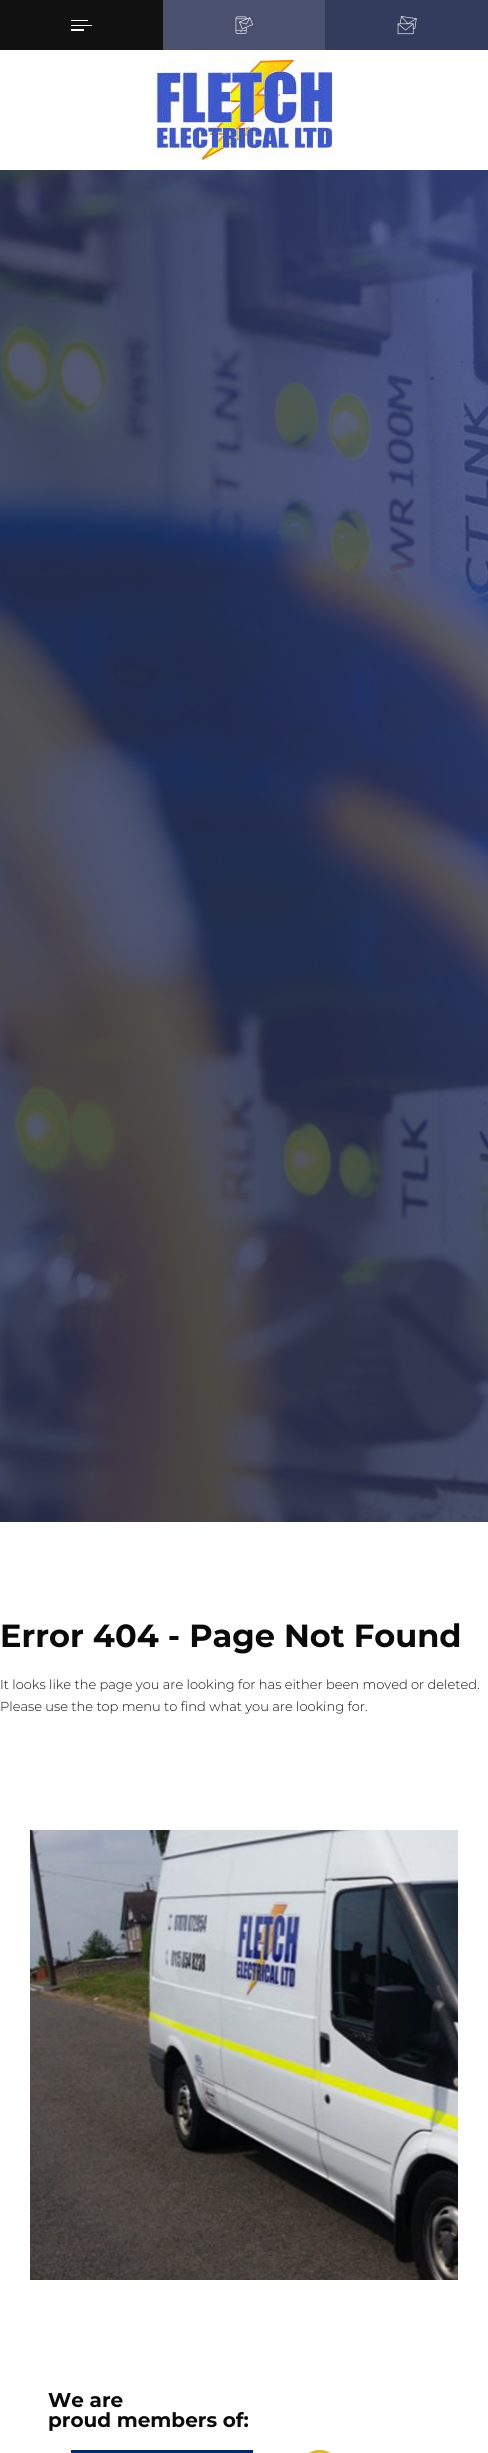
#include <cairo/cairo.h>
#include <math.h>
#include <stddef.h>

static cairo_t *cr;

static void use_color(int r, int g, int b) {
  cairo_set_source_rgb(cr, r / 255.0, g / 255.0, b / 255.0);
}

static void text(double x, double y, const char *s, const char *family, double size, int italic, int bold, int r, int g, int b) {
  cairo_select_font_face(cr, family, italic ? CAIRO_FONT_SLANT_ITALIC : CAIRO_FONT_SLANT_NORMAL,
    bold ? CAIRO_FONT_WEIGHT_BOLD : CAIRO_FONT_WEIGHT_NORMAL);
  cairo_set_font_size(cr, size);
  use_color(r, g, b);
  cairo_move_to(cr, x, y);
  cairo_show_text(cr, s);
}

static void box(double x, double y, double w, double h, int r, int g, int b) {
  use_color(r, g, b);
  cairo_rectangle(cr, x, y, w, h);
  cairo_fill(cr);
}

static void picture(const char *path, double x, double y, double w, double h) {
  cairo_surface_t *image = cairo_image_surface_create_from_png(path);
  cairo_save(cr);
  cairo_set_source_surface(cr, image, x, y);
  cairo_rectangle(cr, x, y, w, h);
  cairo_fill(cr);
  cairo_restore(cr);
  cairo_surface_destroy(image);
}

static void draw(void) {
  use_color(255, 255, 255);
  cairo_paint(cr);
  box(0, 0, 163, 50, 17, 17, 17);
  box(71, 20, 17, 1, 255, 255, 255);
  box(71, 25, 21, 1, 255, 255, 255);
  box(71, 29, 13, 2, 255, 255, 255);
  box(163, 0, 162, 50, 74, 81, 111);
  picture("img_01.png", 235, 16, 18, 18);
  box(325, 0, 163, 50, 52, 60, 93);
  picture("img_02.png", 397, 16, 20, 19);
  picture("img_03.png", 156, 60, 177, 100);
  picture("img_04.png", 0, 170, 488, 1352);
  picture("img_05.png", 30, 1830, 428, 450);
  picture("img_06.png", 71, 2450, 182, 3);
  picture("img_07.png", 307, 2450, 25, 3);
  text(0, 1647, "Error 404 - Page Not Found", "Montserrat", 32, 0, 1, 10, 10, 10);
  text(0, 1689, "It looks like the page you are looking for has either been moved or deleted.", "Montserrat Light", 13, 0, 0, 10, 10, 10);
  text(0, 1711, "Please use the top menu to find what you are looking for.", "Montserrat Light", 13, 0, 0, 10, 10, 10);
  text(48, 2407, "We are", "Montserrat", 20, 0, 1, 10, 10, 10);
  text(48, 2427, "proud members of:", "Montserrat", 20, 0, 1, 10, 10, 10);
}

int main(void) {
  cairo_surface_t *surface = cairo_image_surface_create(CAIRO_FORMAT_RGB24, 488, 2453);
  cr = cairo_create(surface);
  cairo_font_options_t *options = cairo_font_options_create();
  cairo_font_options_set_hint_metrics(options, CAIRO_HINT_METRICS_OFF);
  cairo_font_options_set_hint_style(options, CAIRO_HINT_STYLE_NONE);
  cairo_set_font_options(cr, options);
  cairo_set_miter_limit(cr, 4);
  draw();
  cairo_surface_write_to_png(surface, "out.png");
  cairo_font_options_destroy(options);
  cairo_destroy(cr);
  cairo_surface_destroy(surface);
  return 0;
}
